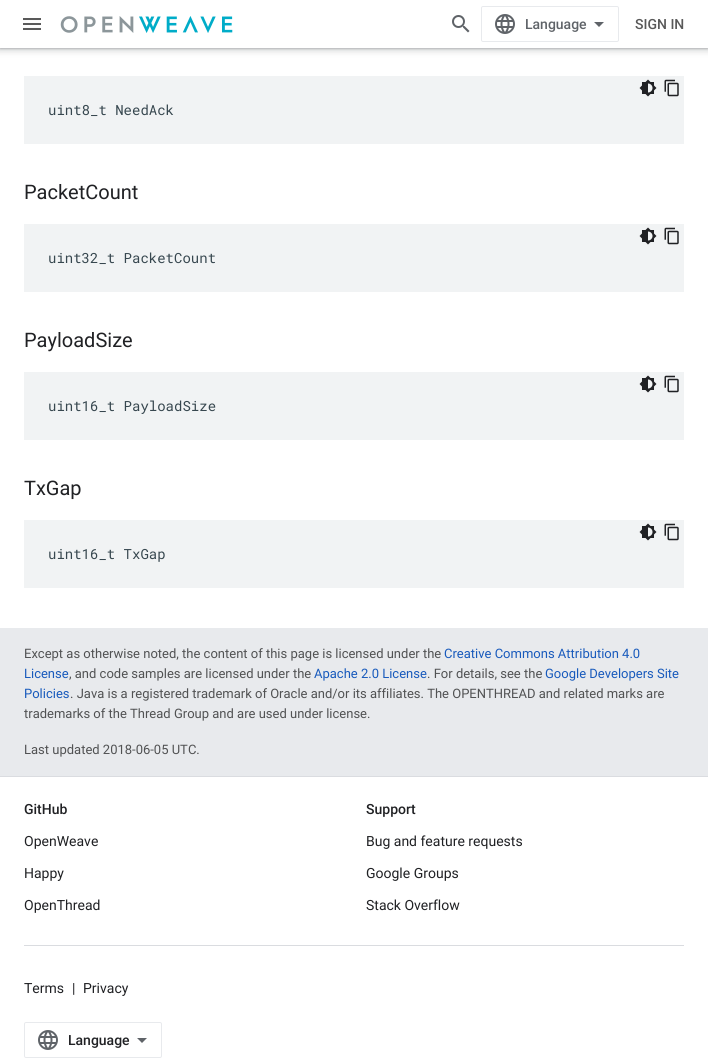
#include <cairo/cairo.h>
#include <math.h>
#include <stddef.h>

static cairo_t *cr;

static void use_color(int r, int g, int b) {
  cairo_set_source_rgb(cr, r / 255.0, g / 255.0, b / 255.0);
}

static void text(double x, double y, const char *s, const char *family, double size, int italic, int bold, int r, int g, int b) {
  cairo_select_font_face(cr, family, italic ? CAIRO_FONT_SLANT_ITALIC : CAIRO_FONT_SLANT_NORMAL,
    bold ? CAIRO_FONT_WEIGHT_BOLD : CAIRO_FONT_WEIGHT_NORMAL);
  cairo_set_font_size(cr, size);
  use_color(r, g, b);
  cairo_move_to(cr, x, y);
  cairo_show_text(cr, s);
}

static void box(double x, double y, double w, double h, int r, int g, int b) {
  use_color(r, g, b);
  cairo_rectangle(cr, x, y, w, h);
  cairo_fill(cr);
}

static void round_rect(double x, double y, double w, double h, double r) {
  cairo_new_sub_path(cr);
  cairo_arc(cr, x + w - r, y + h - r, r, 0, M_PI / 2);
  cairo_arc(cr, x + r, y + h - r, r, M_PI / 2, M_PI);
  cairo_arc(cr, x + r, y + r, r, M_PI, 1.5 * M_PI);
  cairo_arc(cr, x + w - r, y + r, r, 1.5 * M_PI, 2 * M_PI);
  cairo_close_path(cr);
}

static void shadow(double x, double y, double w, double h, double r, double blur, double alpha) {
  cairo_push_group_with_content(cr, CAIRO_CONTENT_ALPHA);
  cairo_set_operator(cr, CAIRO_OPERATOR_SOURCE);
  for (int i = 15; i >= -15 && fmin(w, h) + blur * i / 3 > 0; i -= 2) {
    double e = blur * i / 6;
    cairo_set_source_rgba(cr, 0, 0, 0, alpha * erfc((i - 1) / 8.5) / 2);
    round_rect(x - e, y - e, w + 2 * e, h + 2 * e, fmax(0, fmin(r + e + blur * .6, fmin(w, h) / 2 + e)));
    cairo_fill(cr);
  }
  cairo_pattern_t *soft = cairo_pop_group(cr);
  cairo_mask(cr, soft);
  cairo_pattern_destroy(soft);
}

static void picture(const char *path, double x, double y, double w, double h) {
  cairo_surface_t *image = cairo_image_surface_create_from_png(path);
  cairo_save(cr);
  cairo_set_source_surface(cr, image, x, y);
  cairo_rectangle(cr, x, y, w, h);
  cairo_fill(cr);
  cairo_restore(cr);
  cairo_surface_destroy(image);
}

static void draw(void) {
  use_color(232, 234, 237);
  cairo_paint(cr);
  box(0, 48, 708, 580, 255, 255, 255);
  use_color(60, 64, 67);
  shadow(-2, -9, 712, 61, 0, 3, 0.15);
  shadow(0, -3, 708, 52, 0, 1, 0.3);
  box(0, 0, 708, 48, 255, 255, 255);
  picture("img_01.png", 23, 18, 18, 12);
  picture("img_02.png", 60, 16, 173, 17);
  picture("img_03.png", 452, 15, 18, 18);
  round_rect(481.5, 6.5, 137, 35, 1.5);
  use_color(232, 234, 237);
  cairo_set_line_width(cr, 1);
  cairo_stroke(cr);
  picture("img_04.png", 495, 14, 20, 20);
  use_color(95, 99, 104);
  cairo_new_path(cr);
  cairo_move_to(cr, 599, 27);
  cairo_line_to(cr, 594, 22);
  cairo_line_to(cr, 604, 22);
  cairo_close_path(cr);
  cairo_fill(cr);
  box(24, 76, 660, 68, 241, 243, 244);
  picture("img_05.png", 639, 79, 18, 18);
  picture("img_06.png", 664, 79, 15, 18);
  box(24, 224, 660, 68, 241, 243, 244);
  picture("img_05.png", 639, 227, 18, 18);
  picture("img_06.png", 664, 227, 15, 18);
  box(24, 372, 660, 68, 241, 243, 244);
  picture("img_05.png", 639, 375, 18, 18);
  picture("img_06.png", 664, 375, 15, 18);
  box(24, 520, 660, 68, 241, 243, 244);
  picture("img_05.png", 639, 523, 18, 18);
  picture("img_06.png", 664, 523, 15, 18);
  box(0, 776, 708, 1, 218, 220, 224);
  box(0, 777, 708, 285, 255, 255, 255);
  box(24, 945, 660, 1, 218, 220, 224);
  round_rect(24.5, 1022.5, 137, 35, 1.5);
  use_color(232, 234, 237);
  cairo_stroke(cr);
  picture("img_04.png", 38, 1030, 20, 20);
  use_color(95, 99, 104);
  cairo_new_path(cr);
  cairo_move_to(cr, 142, 1043);
  cairo_line_to(cr, 137, 1038);
  cairo_line_to(cr, 147, 1038);
  cairo_close_path(cr);
  cairo_fill(cr);
  text(525, 29, "Language", "Roboto Medium", 14, 0, 0, 95, 99, 104);
  text(635, 29, "SIGN IN", "Roboto Medium", 14, 0, 0, 89, 89, 89);
  text(48, 115, "uint8_t NeedAck", "Roboto Mono", 14, 0, 0, 55, 71, 79);
  text(24, 199, "PacketCount", "Roboto", 20, 0, 0, 32, 33, 36);
  text(48, 263, "uint32_t PacketCount", "Roboto Mono", 14, 0, 0, 55, 71, 79);
  text(24, 347, "PayloadSize", "Roboto", 20, 0, 0, 32, 33, 36);
  text(48, 411, "uint16_t PayloadSize", "Roboto Mono", 14, 0, 0, 55, 71, 79);
  text(24, 495, "TxGap", "Roboto", 20, 0, 0, 32, 33, 36);
  text(48, 559, "uint16_t TxGap", "Roboto Mono", 14, 0, 0, 55, 71, 79);
  text(24, 658, "Except as otherwise noted, the content of this page is licensed under the", "Roboto", 13, 0, 0, 81, 82, 83);
  text(444, 658, "Creative Commons Attribution 4.0", "Roboto", 13, 0, 0, 24, 90, 188);
  text(24, 678, "License", "Roboto", 13, 0, 0, 24, 90, 188);
  text(69, 678, ", and code samples are licensed under the", "Roboto", 13, 0, 0, 81, 82, 83);
  text(314, 678, "Apache 2.0 License", "Roboto", 13, 0, 0, 24, 90, 188);
  text(427, 678, ". For details, see the", "Roboto", 13, 0, 0, 81, 82, 83);
  text(545, 678, "Google Developers Site", "Roboto", 13, 0, 0, 24, 90, 188);
  text(24, 698, "Policies", "Roboto", 13, 0, 0, 24, 90, 188);
  text(70, 698, ". Java is a registered trademark of Oracle and/or its affiliates. The OPENTHREAD and related marks are", "Roboto", 13, 0, 0, 81, 82, 83);
  text(24, 718, "trademarks of the Thread Group and are used under license.", "Roboto", 13, 0, 0, 81, 82, 83);
  text(24, 754, "Last updated 2018-06-05 UTC.", "Roboto", 13, 0, 0, 81, 82, 83);
  text(24, 814, "GitHub", "Roboto Medium", 14, 0, 0, 32, 33, 36);
  text(24, 846, "OpenWeave", "Roboto", 14, 0, 0, 32, 33, 36);
  text(24, 878, "Happy", "Roboto", 14, 0, 0, 32, 33, 36);
  text(24, 910, "OpenThread", "Roboto", 14, 0, 0, 32, 33, 36);
  text(366, 814, "Support", "Roboto Medium", 14, 0, 0, 32, 33, 36);
  text(366, 846, "Bug and feature requests", "Roboto", 14, 0, 0, 32, 33, 36);
  text(366, 878, "Google Groups", "Roboto", 14, 0, 0, 32, 33, 36);
  text(366, 910, "Stack Overflow", "Roboto", 14, 0, 0, 32, 33, 36);
  text(24, 993, "Terms", "Roboto", 14, 0, 0, 32, 33, 36);
  text(72, 993, "|", "Roboto", 14, 0, 0, 32, 33, 36);
  text(83, 993, "Privacy", "Roboto", 14, 0, 0, 32, 33, 36);
  text(68, 1045, "Language", "Roboto Medium", 14, 0, 0, 32, 33, 36);
}

int main(void) {
  cairo_surface_t *surface = cairo_image_surface_create(CAIRO_FORMAT_RGB24, 708, 1062);
  cr = cairo_create(surface);
  cairo_font_options_t *options = cairo_font_options_create();
  cairo_font_options_set_hint_metrics(options, CAIRO_HINT_METRICS_OFF);
  cairo_font_options_set_hint_style(options, CAIRO_HINT_STYLE_NONE);
  cairo_set_font_options(cr, options);
  cairo_set_miter_limit(cr, 4);
  draw();
  cairo_surface_write_to_png(surface, "out.png");
  cairo_font_options_destroy(options);
  cairo_destroy(cr);
  cairo_surface_destroy(surface);
  return 0;
}
